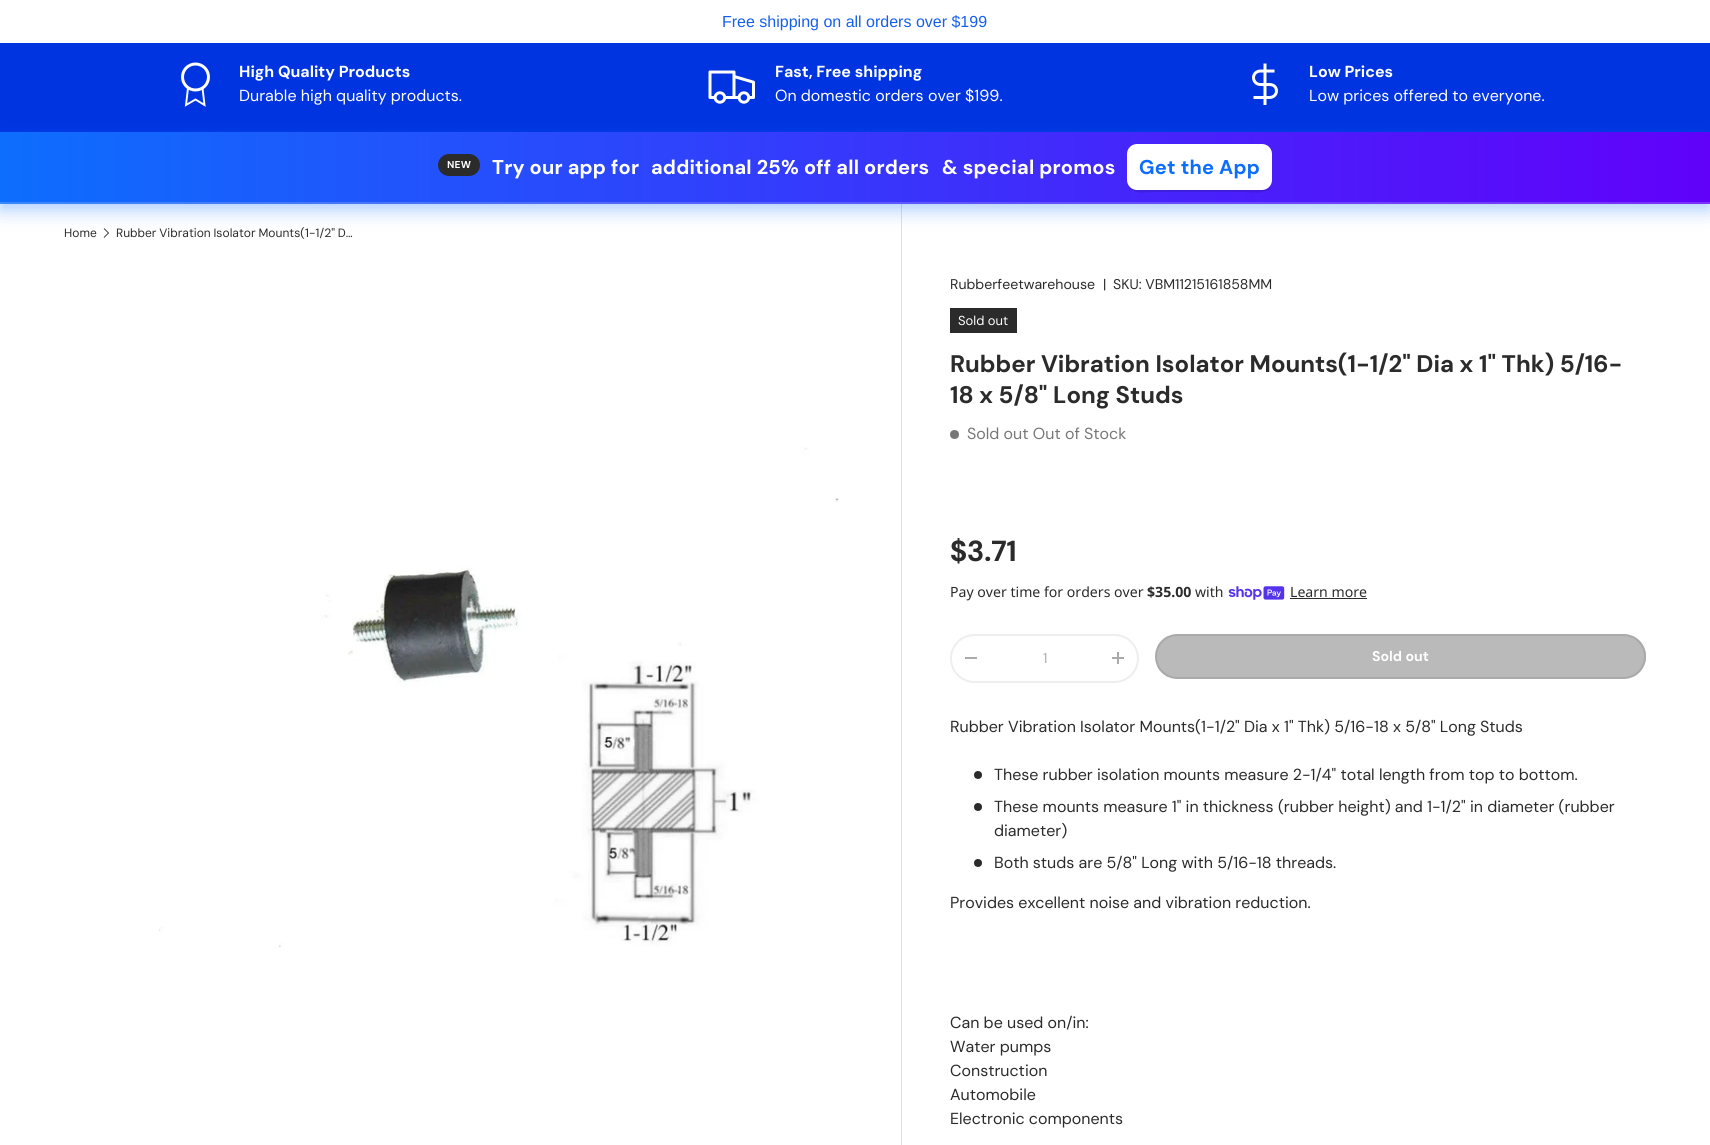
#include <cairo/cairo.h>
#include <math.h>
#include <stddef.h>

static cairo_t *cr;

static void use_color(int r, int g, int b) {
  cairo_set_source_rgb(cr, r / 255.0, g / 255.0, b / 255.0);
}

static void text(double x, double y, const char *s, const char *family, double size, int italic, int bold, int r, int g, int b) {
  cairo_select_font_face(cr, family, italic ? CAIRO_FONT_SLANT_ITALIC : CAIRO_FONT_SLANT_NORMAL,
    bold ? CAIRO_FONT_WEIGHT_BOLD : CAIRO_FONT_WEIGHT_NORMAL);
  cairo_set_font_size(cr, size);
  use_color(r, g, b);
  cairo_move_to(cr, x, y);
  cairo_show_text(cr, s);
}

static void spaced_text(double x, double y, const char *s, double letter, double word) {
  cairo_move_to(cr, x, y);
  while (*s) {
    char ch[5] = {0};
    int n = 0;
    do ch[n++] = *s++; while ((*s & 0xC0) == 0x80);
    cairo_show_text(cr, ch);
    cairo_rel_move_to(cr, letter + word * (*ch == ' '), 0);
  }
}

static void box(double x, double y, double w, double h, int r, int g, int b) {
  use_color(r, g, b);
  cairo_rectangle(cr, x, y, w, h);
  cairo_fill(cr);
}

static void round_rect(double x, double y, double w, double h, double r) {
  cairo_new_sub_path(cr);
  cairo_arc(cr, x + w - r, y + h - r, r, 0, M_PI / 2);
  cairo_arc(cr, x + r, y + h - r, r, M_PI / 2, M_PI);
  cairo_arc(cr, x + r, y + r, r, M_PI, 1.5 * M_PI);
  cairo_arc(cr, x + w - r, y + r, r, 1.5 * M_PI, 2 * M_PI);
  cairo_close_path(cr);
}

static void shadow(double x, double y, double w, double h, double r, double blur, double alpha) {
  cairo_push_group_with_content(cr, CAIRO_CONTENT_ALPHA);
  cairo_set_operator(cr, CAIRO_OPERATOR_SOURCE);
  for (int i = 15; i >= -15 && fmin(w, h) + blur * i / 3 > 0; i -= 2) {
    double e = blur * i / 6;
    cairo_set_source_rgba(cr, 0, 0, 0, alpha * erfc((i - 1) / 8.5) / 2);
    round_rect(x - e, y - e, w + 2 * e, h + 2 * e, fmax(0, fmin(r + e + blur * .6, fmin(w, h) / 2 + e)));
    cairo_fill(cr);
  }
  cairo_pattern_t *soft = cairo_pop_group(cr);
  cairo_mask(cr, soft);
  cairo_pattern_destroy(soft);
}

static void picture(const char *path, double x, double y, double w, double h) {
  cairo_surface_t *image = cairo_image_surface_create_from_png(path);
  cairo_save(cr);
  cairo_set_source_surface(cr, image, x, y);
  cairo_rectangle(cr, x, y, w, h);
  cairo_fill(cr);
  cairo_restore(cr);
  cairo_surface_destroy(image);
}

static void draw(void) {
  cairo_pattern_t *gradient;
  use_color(255, 255, 255);
  cairo_paint(cr);
  box(0, 43, 1710, 89, 0, 52, 224);
  cairo_arc(cr, 195.5, 77, 13, 0, 2 * M_PI);
  use_color(255, 255, 255);
  cairo_set_line_width(cr, 3);
  cairo_stroke(cr);
  cairo_new_path(cr);
  cairo_move_to(cr, 188, 88);
  cairo_line_to(cr, 186, 105);
  cairo_line_to(cr, 195.5, 99.5);
  cairo_line_to(cr, 204.5, 105);
  cairo_line_to(cr, 202.5, 88);
  cairo_set_line_width(cr, 1.9);
  cairo_stroke(cr);
  picture("img_01.png", 708, 70, 47, 34);
  cairo_new_path(cr);
  cairo_move_to(cr, 1265, 63.5);
  cairo_line_to(cr, 1265, 105);
  cairo_move_to(cr, 1274.5, 71);
  cairo_line_to(cr, 1260.5, 71);
  cairo_curve_to(cr, 1256.5, 71, 1253.5, 74, 1253.5, 77.5);
  cairo_curve_to(cr, 1253.5, 81.5, 1256.5, 84.5, 1260.5, 84.5);
  cairo_line_to(cr, 1269.5, 84.5);
  cairo_curve_to(cr, 1273.5, 84.5, 1276.5, 87, 1276.5, 91);
  cairo_curve_to(cr, 1276.5, 94.5, 1273.5, 97.5, 1269.5, 97.5);
  cairo_line_to(cr, 1253.5, 97.5);
  cairo_set_line_width(cr, 3);
  cairo_stroke(cr);
  cairo_new_path(cr);
  cairo_move_to(cr, 104, 228.5);
  cairo_line_to(cr, 108.5, 233);
  cairo_line_to(cr, 104, 237.5);
  use_color(42, 43, 42);
  cairo_set_line_width(cr, 0.9);
  cairo_stroke(cr);
  box(901, 204, 1, 941, 223, 223, 223);
  use_color(13, 110, 253);
  shadow(0, 138, 1710, 72, 0, 9, 0.35);
  gradient = cairo_pattern_create_linear(0, 167, 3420, 167);
  cairo_pattern_add_color_stop_rgba(gradient, 0, 0.051, 0.431, 0.992, 1);
  cairo_pattern_add_color_stop_rgba(gradient, 0.5, 0.38, 0.004, 0.98, 1);
  cairo_pattern_add_color_stop_rgba(gradient, 1, 0.051, 0.431, 0.992, 1);
  cairo_set_source(cr, gradient);
  cairo_pattern_destroy(gradient);
  cairo_rectangle(cr, 0, 132, 1710, 70);
  cairo_fill(cr);
  gradient = cairo_pattern_create_linear(0, 167, 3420, 167);
  cairo_pattern_add_color_stop_rgba(gradient, 0, 0.224, 0.533, 0.992, 1);
  cairo_pattern_add_color_stop_rgba(gradient, 0.5, 0.49, 0.184, 0.984, 1);
  cairo_pattern_add_color_stop_rgba(gradient, 1, 0.224, 0.533, 0.992, 1);
  cairo_set_source(cr, gradient);
  cairo_pattern_destroy(gradient);
  cairo_rectangle(cr, 0, 202, 1710, 2);
  cairo_fill(cr);
  use_color(42, 43, 42);
  round_rect(438, 154, 42, 22, 11);
  cairo_fill(cr);
  cairo_set_source_rgba(cr, 0, 0, 0, 0.12);
  cairo_new_path(cr);
  cairo_move_to(cr, 1127, 180);
  cairo_curve_to(cr, 1127, 197, 1146, 192, 1158, 192);
  cairo_line_to(cr, 1241, 192);
  cairo_curve_to(cr, 1253, 192, 1272, 197, 1272, 180);
  cairo_curve_to(cr, 1272, 186, 1268, 190, 1262, 190);
  cairo_line_to(cr, 1137, 190);
  cairo_curve_to(cr, 1131, 190, 1127, 186, 1127, 180);
  cairo_close_path(cr);
  cairo_fill(cr);
  use_color(255, 255, 255);
  round_rect(1127, 144, 145, 46, 10);
  cairo_fill(cr);
  picture("img_02.png", 159, 447, 680, 501);
  box(950, 308, 67, 25, 42, 43, 42);
  use_color(119, 119, 119);
  cairo_arc(cr, 954.5, 434.5, 4.5, 0, 2 * M_PI);
  cairo_fill(cr);
  picture("img_03.png", 1228, 586, 57, 14);
  box(1290, 598, 77, 1, 42, 43, 42);
  round_rect(951, 635, 187, 47, 23.5);
  use_color(238, 238, 238);
  cairo_set_line_width(cr, 2);
  cairo_stroke(cr);
  box(965, 657, 12, 2, 170, 170, 170);
  box(1112, 657, 12, 2, 170, 170, 170);
  box(1117, 652, 2, 12, 170, 170, 170);
  cairo_save(cr);
  round_rect(1155, 634, 491, 45, 22.5);
  cairo_clip(cr);
  gradient = cairo_pattern_create_linear(1195, 484, 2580, 829);
  cairo_pattern_add_color_stop_rgba(gradient, 0.6, 0.729, 0.729, 0.729, 1);
  cairo_pattern_add_color_stop_rgba(gradient, 0.6, 0.667, 0.667, 0.667, 1);
  cairo_pattern_add_color_stop_rgba(gradient, 1, 0.667, 0.667, 0.667, 1);
  cairo_set_source(cr, gradient);
  cairo_pattern_destroy(gradient);
  cairo_rectangle(cr, 1157, 636, 489, 41);
  cairo_fill(cr);
  cairo_restore(cr);
  round_rect(1156, 635, 489, 43, 21.5);
  cairo_stroke(cr);
  use_color(42, 43, 42);
  cairo_arc(cr, 978, 775, 4, 0, 2 * M_PI);
  cairo_fill(cr);
  cairo_arc(cr, 978, 807, 4, 0, 2 * M_PI);
  cairo_fill(cr);
  cairo_arc(cr, 978, 863, 4, 0, 2 * M_PI);
  cairo_fill(cr);
  text(722, 27, "Free shipping on all orders over $199", "Liberation Sans", 16, 0, 0, 22, 95, 238);
  text(239, 77, "High Quality Products", "DM Sans", 16, 0, 1, 255, 255, 255);
  text(239, 101, "Durable high quality products.", "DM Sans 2", 16, 0, 0, 255, 255, 255);
  text(775, 77, "Fast, Free shipping", "DM Sans", 16, 0, 1, 255, 255, 255);
  text(775, 101, "On domestic orders over $199.", "DM Sans 2", 16, 0, 0, 255, 255, 255);
  text(1309, 77, "Low Prices", "DM Sans", 16, 0, 1, 255, 255, 255);
  text(1309, 101, "Low prices offered to everyone.", "DM Sans 2", 16, 0, 0, 255, 255, 255);
  cairo_select_font_face(cr, "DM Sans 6", CAIRO_FONT_SLANT_NORMAL, CAIRO_FONT_WEIGHT_BOLD);
  cairo_set_font_size(cr, 10);
  spaced_text(447, 168, "NEW", 0.2, 0);
  cairo_select_font_face(cr, "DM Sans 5", CAIRO_FONT_SLANT_NORMAL, CAIRO_FONT_WEIGHT_BOLD);
  cairo_set_font_size(cr, 20);
  spaced_text(492, 174, "Try our app for", 0.2, 0);
  spaced_text(651, 174, "additional 25% off all orders", 0.2, 0);
  spaced_text(942, 174, "& special promos", 0.2, 0);
  use_color(13, 110, 253);
  spaced_text(1139, 174, "Get the App", 0.2, 0);
  text(64, 237, "Home", "DM Sans", 12, 0, 0, 42, 43, 42);
  spaced_text(116, 237, "Rubber Vibration Isolator Mounts(1-1/2\" D…", 0, -0.5);
  text(950, 289, "Rubberfeetwarehouse", "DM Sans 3", 14.1, 0, 0, 42, 43, 42);
  text(1103, 289, "|", "DM Sans 3", 14.1, 0, 0, 42, 43, 42);
  text(1113, 289, "SKU: VBM11215161858MM", "DM Sans 3", 14.1, 0, 0, 42, 43, 42);
  text(958, 325, "Sold out", "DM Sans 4", 13, 0, 0, 255, 255, 255);
  text(950, 372, "Rubber Vibration Isolator Mounts(1-1/2\" Dia x 1\" Thk) 5/16-", "DM Sans 2", 24, 0, 1, 42, 43, 42);
  text(950, 403, "18 x 5/8\" Long Studs", "DM Sans 2", 24, 0, 1, 42, 43, 42);
  text(967, 439, "Sold out Out of Stock", "DM Sans 2", 16, 0, 0, 119, 119, 119);
  text(950, 561, "$3.71", "DM Sans 3", 29, 0, 1, 42, 43, 42);
  text(950, 597, "Pay over time for orders over", "Noto Sans", 14.1, 0, 0, 42, 43, 42);
  text(1147, 597, "$35.00", "Noto Sans", 14.1, 0, 1, 42, 43, 42);
  text(1195, 597, "with", "Noto Sans", 14.1, 0, 0, 42, 43, 42);
  text(1290, 597, "Learn more", "Noto Sans", 14.1, 0, 0, 42, 43, 42);
  text(1043, 663, "1", "DM Sans 3", 14.1, 0, 0, 170, 170, 170);
  text(1372, 661, "Sold out", "DM Sans 4", 14.1, 0, 1, 255, 255, 255);
  text(950, 732, "Rubber Vibration Isolator Mounts(1-1/2\" Dia x 1\" Thk) 5/16-18 x 5/8\" Long Studs", "DM Sans 2", 16, 0, 0, 42, 43, 42);
  text(994, 780, "These rubber isolation mounts measure 2-1/4\" total length from top to bottom.", "DM Sans 2", 16, 0, 0, 42, 43, 42);
  text(994, 812, "These mounts measure 1\" in thickness (rubber height) and 1-1/2\" in diameter (rubber", "DM Sans 2", 16, 0, 0, 42, 43, 42);
  text(994, 836, "diameter)", "DM Sans 2", 16, 0, 0, 42, 43, 42);
  text(994, 868, "Both studs are 5/8\" Long with 5/16-18 threads.", "DM Sans 2", 16, 0, 0, 42, 43, 42);
  text(950, 908, "Provides excellent noise and vibration reduction.", "DM Sans 2", 16, 0, 0, 42, 43, 42);
  text(950, 1028, "Can be used on/in:", "DM Sans 2", 16, 0, 0, 42, 43, 42);
  text(950, 1052, "Water pumps", "DM Sans 2", 16, 0, 0, 42, 43, 42);
  text(950, 1076, "Construction", "DM Sans 2", 16, 0, 0, 42, 43, 42);
  text(950, 1100, "Automobile", "DM Sans 2", 16, 0, 0, 42, 43, 42);
  text(950, 1124, "Electronic components", "DM Sans 2", 16, 0, 0, 42, 43, 42);
}

int main(void) {
  cairo_surface_t *surface = cairo_image_surface_create(CAIRO_FORMAT_RGB24, 1710, 1145);
  cr = cairo_create(surface);
  cairo_font_options_t *options = cairo_font_options_create();
  cairo_font_options_set_hint_metrics(options, CAIRO_HINT_METRICS_OFF);
  cairo_font_options_set_hint_style(options, CAIRO_HINT_STYLE_NONE);
  cairo_set_font_options(cr, options);
  cairo_set_miter_limit(cr, 4);
  draw();
  cairo_surface_write_to_png(surface, "out.png");
  cairo_font_options_destroy(options);
  cairo_destroy(cr);
  cairo_surface_destroy(surface);
  return 0;
}
